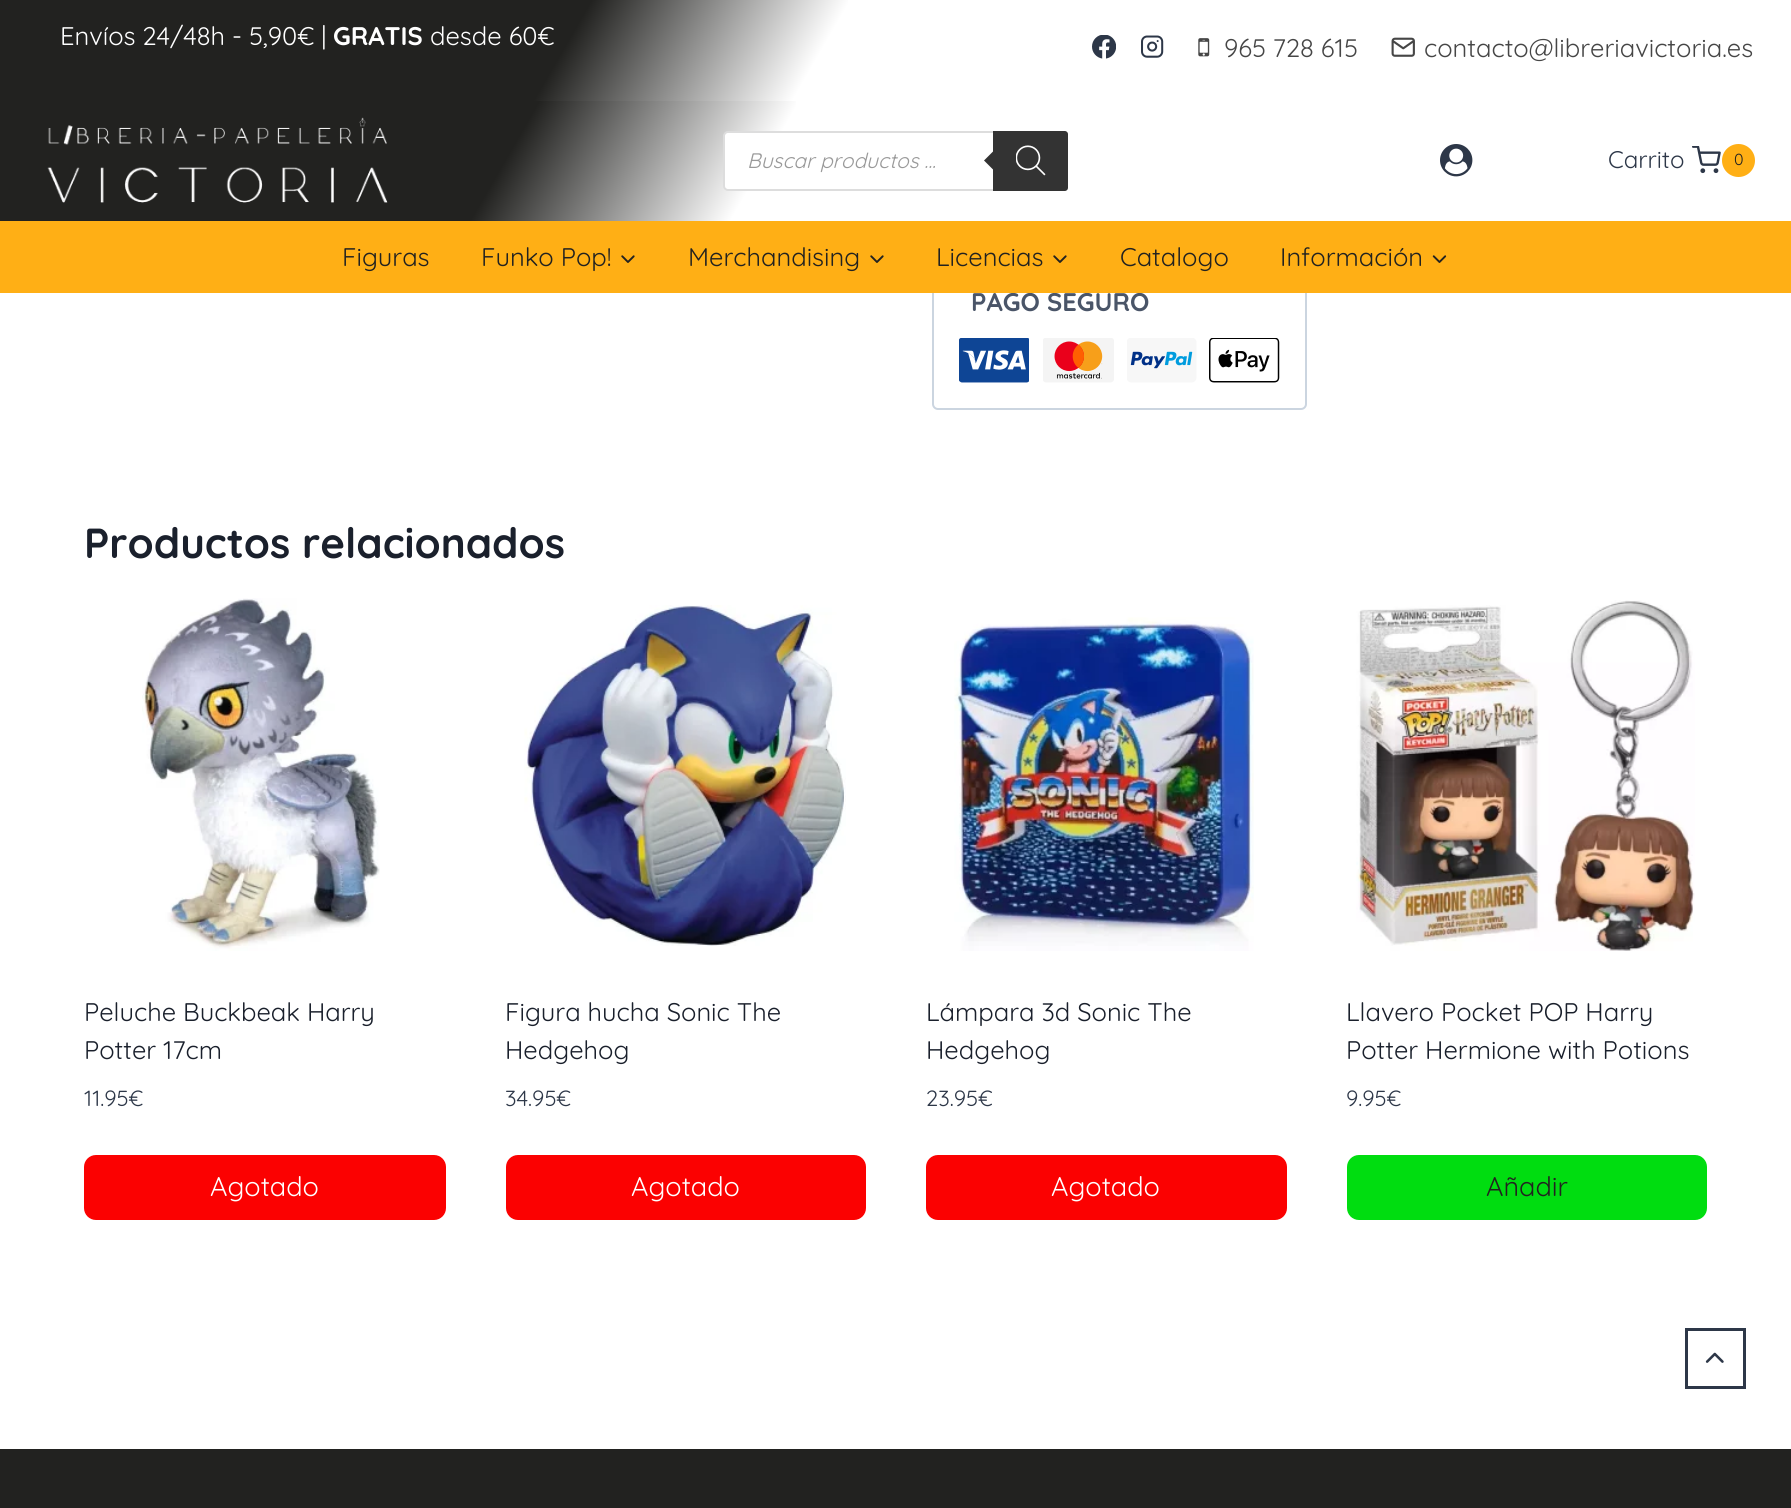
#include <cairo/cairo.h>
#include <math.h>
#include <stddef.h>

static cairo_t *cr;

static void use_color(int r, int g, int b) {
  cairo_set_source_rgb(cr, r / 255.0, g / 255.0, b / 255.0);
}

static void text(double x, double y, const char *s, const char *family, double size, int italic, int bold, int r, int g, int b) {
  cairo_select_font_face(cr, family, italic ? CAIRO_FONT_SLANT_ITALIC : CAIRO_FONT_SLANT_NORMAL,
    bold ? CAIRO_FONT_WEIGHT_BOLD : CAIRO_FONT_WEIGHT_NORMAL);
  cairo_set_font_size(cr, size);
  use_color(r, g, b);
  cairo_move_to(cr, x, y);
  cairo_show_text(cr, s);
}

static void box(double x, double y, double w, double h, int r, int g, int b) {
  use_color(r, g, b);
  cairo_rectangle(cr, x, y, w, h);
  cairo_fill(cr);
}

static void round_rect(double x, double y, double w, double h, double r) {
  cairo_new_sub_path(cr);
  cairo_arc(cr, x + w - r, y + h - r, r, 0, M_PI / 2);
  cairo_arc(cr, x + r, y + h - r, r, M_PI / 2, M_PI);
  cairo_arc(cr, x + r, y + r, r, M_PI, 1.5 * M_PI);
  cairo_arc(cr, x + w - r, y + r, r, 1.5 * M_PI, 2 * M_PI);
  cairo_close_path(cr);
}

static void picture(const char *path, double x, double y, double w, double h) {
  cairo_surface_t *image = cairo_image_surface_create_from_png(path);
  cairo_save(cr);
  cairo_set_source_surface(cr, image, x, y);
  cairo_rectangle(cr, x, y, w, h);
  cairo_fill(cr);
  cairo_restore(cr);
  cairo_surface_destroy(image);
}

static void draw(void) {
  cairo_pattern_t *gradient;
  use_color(255, 255, 255);
  cairo_paint(cr);
  gradient = cairo_pattern_create_linear(202, -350, 1589, 451);
  cairo_pattern_add_color_stop_rgba(gradient, 0.32, 0.133, 0.133, 0.125, 1);
  cairo_pattern_add_color_stop_rgba(gradient, 0.46, 1, 1, 1, 1);
  cairo_pattern_add_color_stop_rgba(gradient, 1, 1, 1, 1, 1);
  cairo_set_source(cr, gradient);
  cairo_pattern_destroy(gradient);
  cairo_rectangle(cr, 0, 0, 848, 101);
  cairo_fill(cr);
  picture("img_01.png", 1092, 35, 24, 24);
  picture("img_02.png", 1141, 35, 23, 23);
  picture("img_03.png", 1198, 38, 12, 19);
  picture("img_04.png", 1391, 37, 24, 20);
  gradient = cairo_pattern_create_linear(198, -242, 1593, 563);
  cairo_pattern_add_color_stop_rgba(gradient, 0.29, 0.133, 0.133, 0.125, 1);
  cairo_pattern_add_color_stop_rgba(gradient, 0.43, 1, 1, 1, 1);
  cairo_pattern_add_color_stop_rgba(gradient, 0.7, 1, 1, 1, 1);
  cairo_set_source(cr, gradient);
  cairo_pattern_destroy(gradient);
  cairo_rectangle(cr, 0, 101, 796, 120);
  cairo_fill(cr);
  picture("img_05.png", 47, 117, 341, 86);
  use_color(255, 255, 255);
  round_rect(724, 132, 343, 58, 4);
  cairo_fill_preserve(cr);
  use_color(221, 221, 221);
  cairo_stroke(cr);
  use_color(51, 51, 51);
  cairo_new_path(cr);
  cairo_move_to(cr, 993, 131);
  cairo_line_to(cr, 1065, 131);
  cairo_curve_to(cr, 1066.5, 131, 1068, 132.5, 1068, 134);
  cairo_line_to(cr, 1068, 188);
  cairo_curve_to(cr, 1068, 189.5, 1066.5, 191, 1065, 191);
  cairo_line_to(cr, 993, 191);
  cairo_close_path(cr);
  cairo_fill(cr);
  cairo_new_path(cr);
  cairo_move_to(cr, 996, 148.5);
  cairo_line_to(cr, 996, 172.5);
  cairo_line_to(cr, 984, 160.5);
  cairo_close_path(cr);
  cairo_fill(cr);
  picture("img_06.png", 1016, 145, 30, 31);
  picture("img_07.png", 1440, 144, 33, 33);
  picture("img_08.png", 1692, 146, 29, 28);
  use_color(255, 175, 21);
  cairo_arc(cr, 1738.5, 160.5, 16.5, 0, 2 * M_PI);
  cairo_fill(cr);
  round_rect(933, 282, 373, 127, 5);
  use_color(203, 213, 224);
  cairo_stroke(cr);
  picture("img_11.png", 959, 338, 70, 45);
  picture("img_12.png", 1043, 338, 71, 45);
  picture("img_13.png", 1127, 338, 70, 45);
  picture("img_14.png", 1209, 338, 71, 45);
  picture("img_15.png", 142, 598, 238, 353);
  use_color(251, 1, 1);
  round_rect(84, 1155, 362, 65, 12);
  cairo_fill(cr);
  picture("img_16.png", 524, 605, 322, 341);
  round_rect(506, 1155, 360, 65, 12);
  cairo_fill(cr);
  picture("img_17.png", 954, 617, 300, 334);
  round_rect(926, 1155, 361, 65, 12);
  cairo_fill(cr);
  picture("img_18.png", 1356, 600, 339, 351);
  use_color(0, 221, 16);
  round_rect(1347, 1155, 360, 65, 12);
  cairo_fill(cr);
  box(0, 1449, 1791, 59, 34, 34, 32);
  cairo_rectangle(cr, 1686.5, 1329.5, 58, 58);
  use_color(45, 55, 72);
  cairo_set_line_width(cr, 3);
  cairo_stroke(cr);
  picture("img_19.png", 1705, 1352, 19, 11);
  text(60, 45, "Envíos 24/48h - 5,90€ |", "Quicksand", 25.5, 0, 0, 255, 255, 255);
  text(333, 45, "GRATIS", "Quicksand", 25.5, 0, 1, 255, 255, 255);
  text(430, 45, "desde 60€", "Quicksand", 25.5, 0, 0, 255, 255, 255);
  text(1224, 57, "965 728 615", "Quicksand", 25.5, 0, 0, 70, 70, 70);
  text(1424, 57, "contacto@libreriavictoria.es", "Quicksand", 25.5, 0, 0, 70, 70, 70);
  text(747, 168, "Buscar productos ...", "Quicksand", 21, 1, 0, 153, 153, 153);
  text(1608, 168, "Carrito", "Quicksand", 24, 0, 0, 45, 55, 72);
  text(1734, 165, "0", "Quicksand", 16, 0, 0, 34, 34, 32);
  text(971, 311, "PAGO SEGURO", "Quicksand", 25.5, 0, 1, 74, 85, 104);
  box(0, 221, 1791, 72, 255, 175, 21);
  picture("img_10.png", 1432, 255, 15, 8);
  text(1280, 266, "Información", "Quicksand", 25.5, 0, 0, 34, 34, 32);
  text(1120, 266, "Catalogo", "Quicksand", 25.5, 0, 0, 34, 34, 32);
  picture("img_09.png", 1053, 255, 14, 8);
  text(936, 266, "Licencias", "Quicksand", 25.5, 0, 0, 34, 34, 32);
  picture("img_09.png", 870, 255, 14, 8);
  text(688, 266, "Merchandising", "Quicksand", 25.5, 0, 0, 34, 34, 32);
  picture("img_09.png", 621, 255, 14, 8);
  text(481, 266, "Funko Pop!", "Quicksand", 25.5, 0, 0, 34, 34, 32);
  text(342, 266, "Figuras", "Quicksand", 25.5, 0, 0, 34, 34, 32);
  text(84, 558, "Productos relacionados", "Quicksand", 42, 0, 1, 26, 32, 44);
  text(84, 1021, "Peluche Buckbeak Harry", "Quicksand", 25.5, 0, 0, 26, 32, 44);
  text(84, 1059, "Potter 17cm", "Quicksand", 25.5, 0, 0, 26, 32, 44);
  text(84, 1106, "11.95€", "Quicksand", 22, 0, 0, 45, 55, 72);
  text(210, 1196, "Agotado", "Quicksand", 27, 0, 0, 255, 255, 255);
  text(505, 1021, "Figura hucha Sonic The", "Quicksand", 25.5, 0, 0, 26, 32, 44);
  text(505, 1059, "Hedgehog", "Quicksand", 25.5, 0, 0, 26, 32, 44);
  text(505, 1106, "34.95€", "Quicksand", 22, 0, 0, 45, 55, 72);
  text(631, 1196, "Agotado", "Quicksand", 27, 0, 0, 255, 255, 255);
  text(926, 1021, "Lámpara 3d Sonic The", "Quicksand", 25.5, 0, 0, 26, 32, 44);
  text(926, 1059, "Hedgehog", "Quicksand", 25.5, 0, 0, 26, 32, 44);
  text(926, 1106, "23.95€", "Quicksand", 22, 0, 0, 45, 55, 72);
  text(1051, 1196, "Agotado", "Quicksand", 27, 0, 0, 255, 255, 255);
  text(1346, 1021, "Llavero Pocket POP Harry", "Quicksand", 25.5, 0, 0, 26, 32, 44);
  text(1346, 1059, "Potter Hermione with Potions", "Quicksand", 25.5, 0, 0, 26, 32, 44);
  text(1346, 1106, "9.95€", "Quicksand", 22, 0, 0, 45, 55, 72);
  text(1486, 1196, "Añadir", "Quicksand", 27, 0, 0, 34, 34, 32);
}

int main(void) {
  cairo_surface_t *surface = cairo_image_surface_create(CAIRO_FORMAT_RGB24, 1791, 1508);
  cr = cairo_create(surface);
  cairo_font_options_t *options = cairo_font_options_create();
  cairo_font_options_set_hint_metrics(options, CAIRO_HINT_METRICS_OFF);
  cairo_font_options_set_hint_style(options, CAIRO_HINT_STYLE_NONE);
  cairo_set_font_options(cr, options);
  cairo_set_miter_limit(cr, 4);
  draw();
  cairo_surface_write_to_png(surface, "out.png");
  cairo_font_options_destroy(options);
  cairo_destroy(cr);
  cairo_surface_destroy(surface);
  return 0;
}
